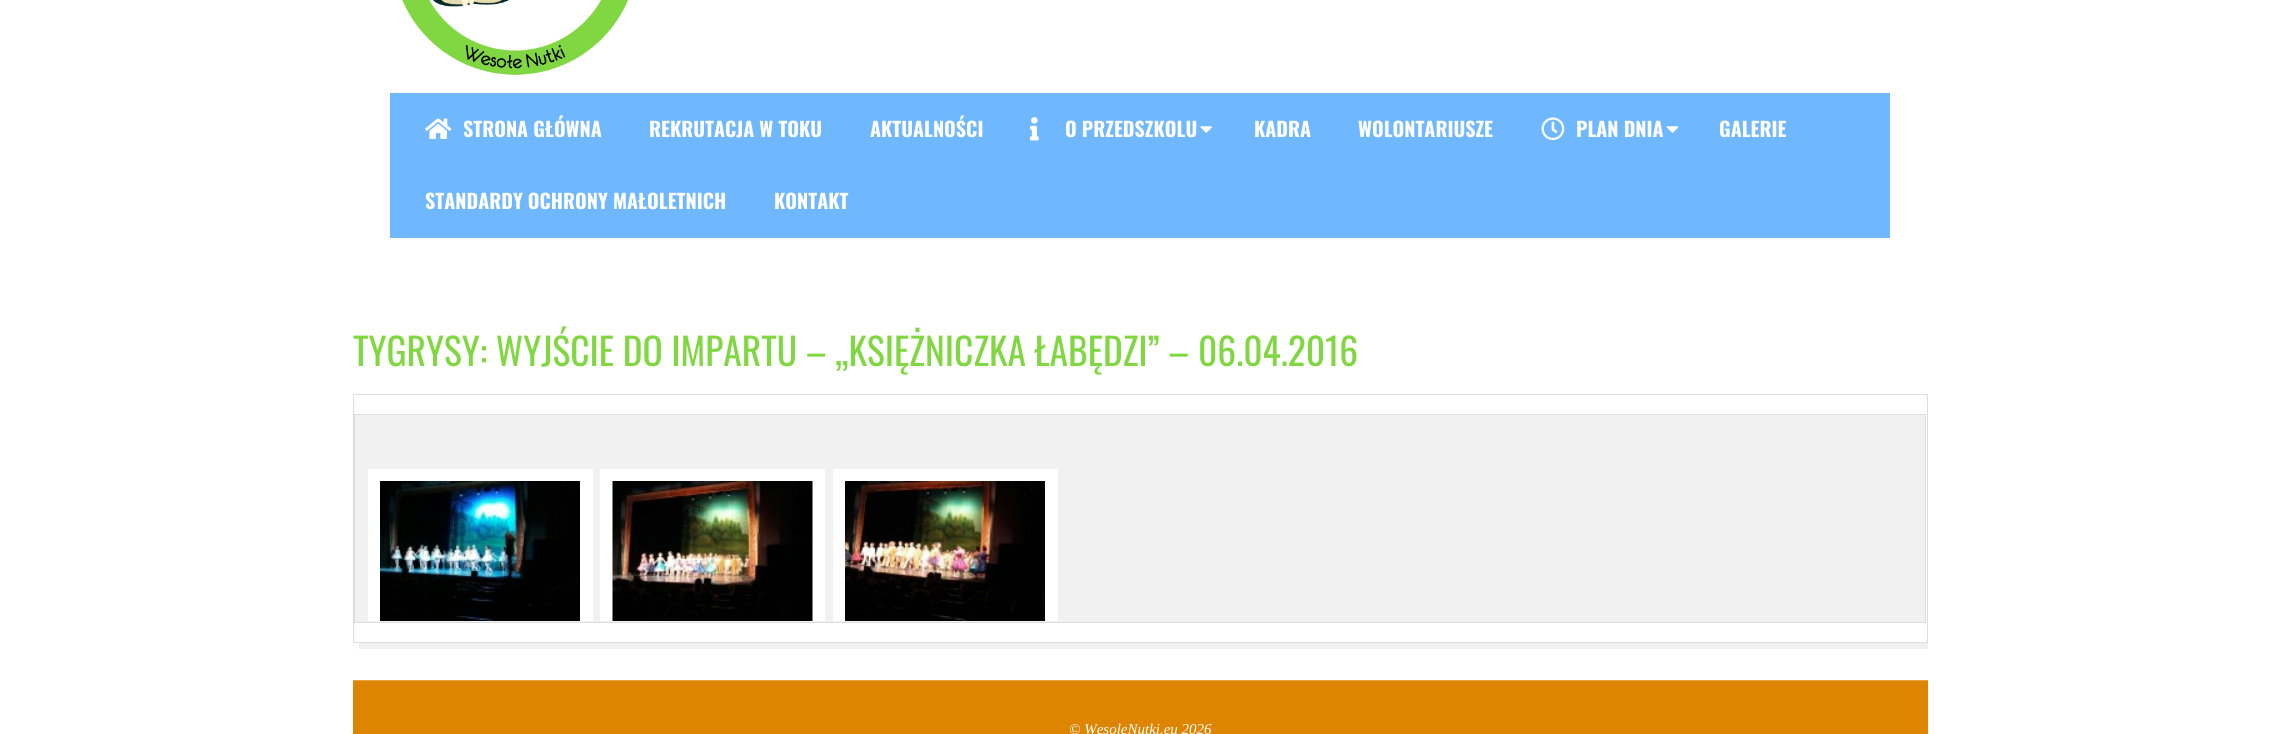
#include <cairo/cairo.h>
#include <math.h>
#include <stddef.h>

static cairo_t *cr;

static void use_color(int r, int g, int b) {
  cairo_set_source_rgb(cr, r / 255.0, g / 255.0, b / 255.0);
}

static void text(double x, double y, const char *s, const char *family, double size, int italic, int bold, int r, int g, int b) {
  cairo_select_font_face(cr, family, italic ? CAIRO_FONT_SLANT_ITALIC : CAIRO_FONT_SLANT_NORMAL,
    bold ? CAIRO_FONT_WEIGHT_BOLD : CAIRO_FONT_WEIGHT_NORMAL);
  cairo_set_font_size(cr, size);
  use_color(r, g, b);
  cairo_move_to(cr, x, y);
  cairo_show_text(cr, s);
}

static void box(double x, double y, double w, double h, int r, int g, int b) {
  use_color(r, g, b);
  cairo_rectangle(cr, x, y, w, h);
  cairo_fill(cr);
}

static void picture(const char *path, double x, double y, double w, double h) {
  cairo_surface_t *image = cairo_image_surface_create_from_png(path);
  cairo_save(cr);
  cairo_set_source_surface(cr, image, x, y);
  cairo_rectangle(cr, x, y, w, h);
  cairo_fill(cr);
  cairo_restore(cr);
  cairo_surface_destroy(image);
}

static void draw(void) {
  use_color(255, 255, 255);
  cairo_paint(cr);
  picture("img_01.png", 402, 0, 227, 75);
  box(390, 93, 1500, 145, 111, 183, 255);
  picture("img_02.png", 425, 118, 27, 21);
  picture("img_03.png", 1030, 117, 9, 24);
  picture("img_04.png", 1200, 126, 12, 7);
  picture("img_05.png", 1541, 117, 24, 23);
  picture("img_06.png", 1666, 126, 13, 7);
  cairo_save(cr);
  cairo_rectangle(cr, 353, 238, 1575, 442);
  cairo_clip(cr);
  use_color(241, 241, 241);
  cairo_new_path(cr);
  cairo_move_to(cr, 359, 642);
  cairo_line_to(cr, 359, 649);
  cairo_line_to(cr, 1934, 649);
  cairo_line_to(cr, 1934, 400);
  cairo_line_to(cr, 1928, 400);
  cairo_line_to(cr, 1928, 642);
  cairo_close_path(cr);
  cairo_fill(cr);
  cairo_restore(cr);
  cairo_rectangle(cr, 353.5, 394.5, 1574, 248);
  use_color(221, 221, 221);
  cairo_set_line_width(cr, 1);
  cairo_stroke(cr);
  use_color(241, 241, 241);
  cairo_rectangle(cr, 354.5, 414.5, 1571, 208);
  cairo_fill_preserve(cr);
  use_color(221, 221, 221);
  cairo_stroke(cr);
  cairo_save(cr);
  cairo_rectangle(cr, 355, 415, 1570, 206);
  cairo_clip(cr);
  cairo_rectangle(cr, 374.5, 475.5, 212, 162);
  use_color(255, 255, 255);
  cairo_set_line_width(cr, 13);
  cairo_stroke(cr);
  cairo_restore(cr);
  picture("img_07.png", 380, 481, 200, 140);
  cairo_save(cr);
  cairo_rectangle(cr, 355, 415, 1570, 206);
  cairo_clip(cr);
  cairo_rectangle(cr, 606.5, 475.5, 212, 162);
  use_color(255, 255, 255);
  cairo_set_line_width(cr, 13);
  cairo_stroke(cr);
  cairo_restore(cr);
  picture("img_08.png", 612, 481, 201, 140);
  cairo_save(cr);
  cairo_rectangle(cr, 355, 415, 1570, 206);
  cairo_clip(cr);
  cairo_rectangle(cr, 839.5, 475.5, 212, 162);
  use_color(255, 255, 255);
  cairo_set_line_width(cr, 13);
  cairo_stroke(cr);
  cairo_restore(cr);
  picture("img_09.png", 845, 481, 200, 140);
  box(353, 681, 1575, 53, 221, 133, 0);
  box(353, 680, 1575, 1, 230, 164, 64);
  text(463, 137, "STRONA GŁÓWNA", "Oswald", 20, 0, 1, 255, 255, 255);
  text(649, 137, "REKRUTACJA W TOKU", "Oswald", 20, 0, 1, 255, 255, 255);
  text(870, 137, "AKTUALNOŚCI", "Oswald", 20, 0, 1, 255, 255, 255);
  text(1065, 137, "O PRZEDSZKOLU", "Oswald", 20, 0, 1, 255, 255, 255);
  text(1254, 137, "KADRA", "Oswald", 20, 0, 1, 255, 255, 255);
  text(1358, 137, "WOLONTARIUSZE", "Oswald", 20, 0, 1, 255, 255, 255);
  text(1576, 137, "PLAN DNIA", "Oswald", 20, 0, 1, 255, 255, 255);
  text(1719, 137, "GALERIE", "Oswald", 20, 0, 1, 255, 255, 255);
  text(425, 209, "STANDARDY OCHRONY MAŁOLETNICH", "Oswald", 20, 0, 1, 255, 255, 255);
  text(774, 209, "KONTAKT", "Oswald", 20, 0, 1, 255, 255, 255);
  text(353, 366, "TYGRYSY: WYJŚCIE DO IMPARTU – „KSIĘŻNICZKA ŁABĘDZI” – 06.04.2016", "Oswald", 37.5, 0, 0, 129, 215, 66);
  text(1069, 734, "© WesoleNutki.eu 2026", "Liberation Serif", 15, 1, 0, 255, 255, 255);
}

int main(void) {
  cairo_surface_t *surface = cairo_image_surface_create(CAIRO_FORMAT_RGB24, 2280, 734);
  cr = cairo_create(surface);
  cairo_font_options_t *options = cairo_font_options_create();
  cairo_font_options_set_hint_metrics(options, CAIRO_HINT_METRICS_OFF);
  cairo_font_options_set_hint_style(options, CAIRO_HINT_STYLE_NONE);
  cairo_set_font_options(cr, options);
  cairo_set_miter_limit(cr, 4);
  draw();
  cairo_surface_write_to_png(surface, "out.png");
  cairo_font_options_destroy(options);
  cairo_destroy(cr);
  cairo_surface_destroy(surface);
  return 0;
}
